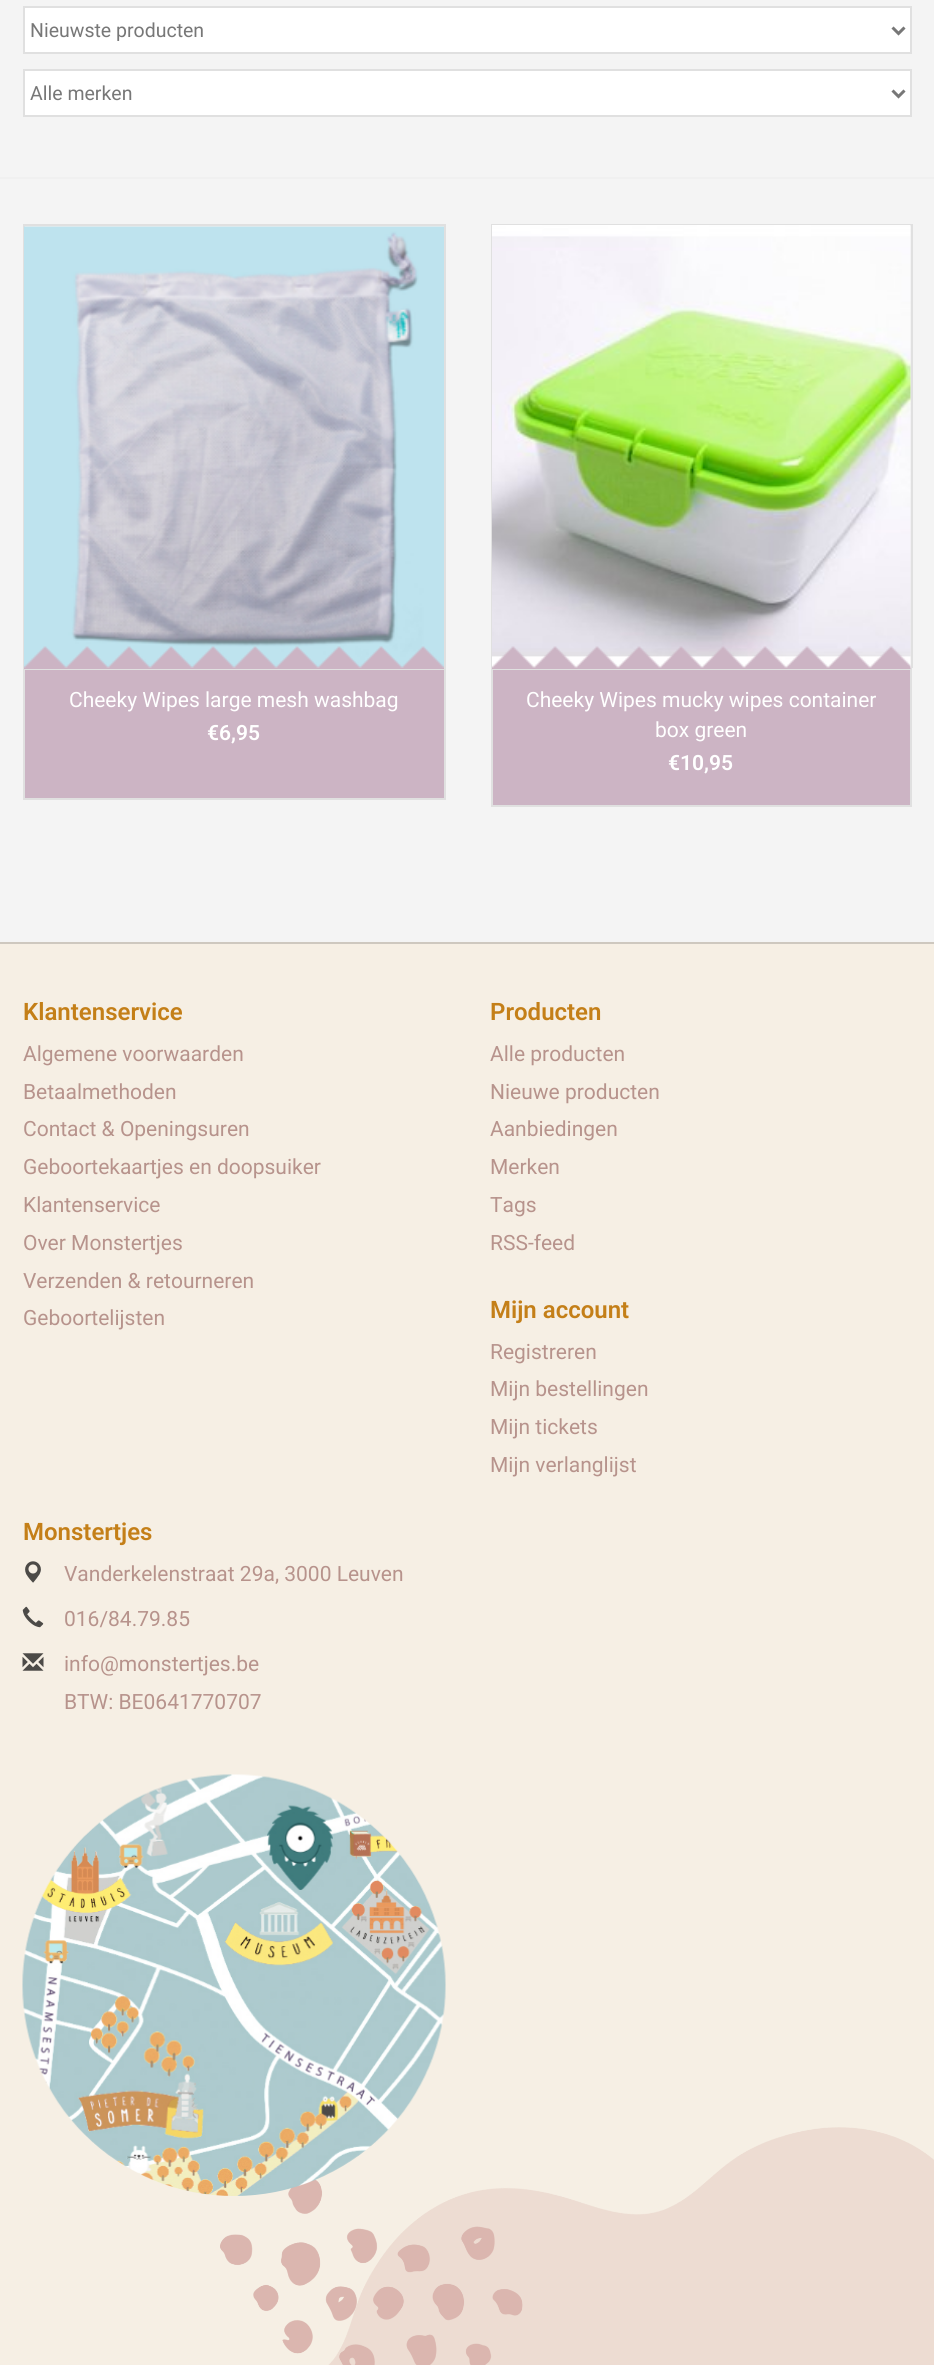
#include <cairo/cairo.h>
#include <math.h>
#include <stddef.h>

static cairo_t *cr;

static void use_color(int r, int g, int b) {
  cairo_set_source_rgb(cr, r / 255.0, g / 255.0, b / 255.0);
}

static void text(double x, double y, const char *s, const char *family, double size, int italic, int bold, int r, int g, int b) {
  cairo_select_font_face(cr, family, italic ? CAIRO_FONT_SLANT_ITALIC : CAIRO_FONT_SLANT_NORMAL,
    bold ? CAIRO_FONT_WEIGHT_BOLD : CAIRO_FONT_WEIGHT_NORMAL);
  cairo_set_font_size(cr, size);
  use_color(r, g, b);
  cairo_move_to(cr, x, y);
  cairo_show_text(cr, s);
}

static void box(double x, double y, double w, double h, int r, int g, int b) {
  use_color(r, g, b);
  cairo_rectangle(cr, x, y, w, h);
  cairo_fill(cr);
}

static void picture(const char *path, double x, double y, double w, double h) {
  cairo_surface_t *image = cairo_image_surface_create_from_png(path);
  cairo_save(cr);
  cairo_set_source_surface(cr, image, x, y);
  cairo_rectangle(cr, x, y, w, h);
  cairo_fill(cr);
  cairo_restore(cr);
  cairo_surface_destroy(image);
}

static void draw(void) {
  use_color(244, 244, 244);
  cairo_paint(cr);
  box(0, 177, 934, 2, 240, 240, 240);
  use_color(255, 255, 255);
  cairo_rectangle(cr, 24, 7, 887, 46);
  cairo_fill_preserve(cr);
  use_color(224, 224, 224);
  cairo_stroke(cr);
  cairo_new_path(cr);
  cairo_move_to(cr, 892.5, 27.5);
  cairo_line_to(cr, 898.5, 33.5);
  cairo_line_to(cr, 904.5, 27.5);
  use_color(119, 119, 119);
  cairo_set_line_width(cr, 3);
  cairo_stroke(cr);
  use_color(255, 255, 255);
  cairo_rectangle(cr, 24, 70, 887, 46);
  cairo_fill_preserve(cr);
  use_color(224, 224, 224);
  cairo_set_line_width(cr, 2);
  cairo_stroke(cr);
  cairo_new_path(cr);
  cairo_move_to(cr, 892.5, 90.5);
  cairo_line_to(cr, 898.5, 96.5);
  cairo_line_to(cr, 904.5, 90.5);
  use_color(119, 119, 119);
  cairo_set_line_width(cr, 3);
  cairo_stroke(cr);
  box(25, 226, 419, 442, 236, 236, 236);
  box(23, 224, 423, 2, 224, 224, 224);
  box(444, 224, 2, 444, 224, 224, 224);
  box(23, 224, 2, 444, 224, 224, 224);
  picture("img_01.png", 24, 226, 420, 442);
  use_color(204, 180, 196);
  cairo_rectangle(cr, 24, 669, 421, 130);
  cairo_fill_preserve(cr);
  use_color(224, 224, 224);
  cairo_set_line_width(cr, 2);
  cairo_stroke(cr);
  picture("img_02.png", 24, 646, 420, 23);
  box(493, 226, 418, 442, 236, 236, 236);
  box(491, 224, 421, 2, 224, 224, 224);
  box(911, 224, 2, 444, 224, 224, 224);
  box(491, 224, 2, 444, 224, 224, 224);
  picture("img_03.png", 492, 225, 419, 443);
  use_color(204, 180, 196);
  cairo_rectangle(cr, 492, 669, 419, 137);
  cairo_fill_preserve(cr);
  use_color(224, 224, 224);
  cairo_stroke(cr);
  picture("img_04.png", 492, 646, 419, 23);
  box(0, 944, 934, 1421, 246, 239, 228);
  picture("img_05.png", 220, 2127, 714, 238);
  box(0, 942, 934, 2, 206, 200, 191);
  picture("img_06.png", 25, 1561, 16, 22);
  picture("img_07.png", 22, 1606, 22, 22);
  picture("img_08.png", 22, 1653, 22, 18);
  picture("img_09.png", 22, 1774, 424, 422);
  text(30, 37, "Nieuwste producten", "Roboto", 19.5, 0, 0, 119, 119, 119);
  text(30, 100, "Alle merken", "Roboto", 19.5, 0, 0, 119, 119, 119);
  text(69, 707, "Cheeky Wipes large mesh washbag", "Roboto", 21, 0, 0, 255, 255, 255);
  text(207, 740, "€6,95", "Roboto SemiBold", 21, 0, 0, 255, 255, 255);
  text(526, 707, "Cheeky Wipes mucky wipes container", "Roboto", 21, 0, 0, 255, 255, 255);
  text(655, 737, "box green", "Roboto", 21, 0, 0, 255, 255, 255);
  text(668, 770, "€10,95", "Roboto SemiBold", 21, 0, 0, 255, 255, 255);
  text(23, 1020, "Klantenservice", "Roboto SemiBold", 24, 0, 0, 196, 127, 24);
  text(23, 1061, "Algemene voorwaarden", "Roboto", 21, 0, 0, 183, 147, 140);
  text(23, 1099, "Betaalmethoden", "Roboto", 21, 0, 0, 183, 147, 140);
  text(23, 1136, "Contact & Openingsuren", "Roboto", 21, 0, 0, 183, 147, 140);
  text(23, 1174, "Geboortekaartjes en doopsuiker", "Roboto", 21, 0, 0, 183, 147, 140);
  text(23, 1212, "Klantenservice", "Roboto", 21, 0, 0, 183, 147, 140);
  text(23, 1250, "Over Monstertjes", "Roboto", 21, 0, 0, 183, 147, 140);
  text(23, 1288, "Verzenden & retourneren", "Roboto", 21, 0, 0, 183, 147, 140);
  text(23, 1325, "Geboortelijsten", "Roboto", 21, 0, 0, 183, 147, 140);
  text(490, 1020, "Producten", "Roboto SemiBold", 24, 0, 0, 196, 127, 24);
  text(490, 1061, "Alle producten", "Roboto", 21, 0, 0, 183, 147, 140);
  text(490, 1099, "Nieuwe producten", "Roboto", 21, 0, 0, 183, 147, 140);
  text(490, 1136, "Aanbiedingen", "Roboto", 21, 0, 0, 183, 147, 140);
  text(490, 1174, "Merken", "Roboto", 21, 0, 0, 183, 147, 140);
  text(490, 1212, "Tags", "Roboto", 21, 0, 0, 183, 147, 140);
  text(490, 1250, "RSS-feed", "Roboto", 21, 0, 0, 183, 147, 140);
  text(490, 1318, "Mijn account", "Roboto SemiBold", 24, 0, 0, 196, 127, 24);
  text(490, 1359, "Registreren", "Roboto", 21, 0, 0, 183, 147, 140);
  text(490, 1396, "Mijn bestellingen", "Roboto", 21, 0, 0, 183, 147, 140);
  text(490, 1434, "Mijn tickets", "Roboto", 21, 0, 0, 183, 147, 140);
  text(490, 1472, "Mijn verlanglijst", "Roboto", 21, 0, 0, 183, 147, 140);
  text(23, 1540, "Monstertjes", "Roboto SemiBold", 24, 0, 0, 196, 127, 24);
  text(64, 1581, "Vanderkelenstraat 29a, 3000 Leuven", "Roboto", 21, 0, 0, 183, 147, 140);
  text(64, 1626, "016/84.79.85", "Roboto", 21, 0, 0, 183, 147, 140);
  text(64, 1671, "info@monstertjes.be", "Roboto", 21, 0, 0, 183, 147, 140);
  text(64, 1709, "BTW: BE0641770707", "Roboto", 21, 0, 0, 183, 147, 140);
}

int main(void) {
  cairo_surface_t *surface = cairo_image_surface_create(CAIRO_FORMAT_RGB24, 934, 2365);
  cr = cairo_create(surface);
  cairo_font_options_t *options = cairo_font_options_create();
  cairo_font_options_set_hint_metrics(options, CAIRO_HINT_METRICS_OFF);
  cairo_font_options_set_hint_style(options, CAIRO_HINT_STYLE_NONE);
  cairo_set_font_options(cr, options);
  cairo_set_miter_limit(cr, 4);
  draw();
  cairo_surface_write_to_png(surface, "out.png");
  cairo_font_options_destroy(options);
  cairo_destroy(cr);
  cairo_surface_destroy(surface);
  return 0;
}
